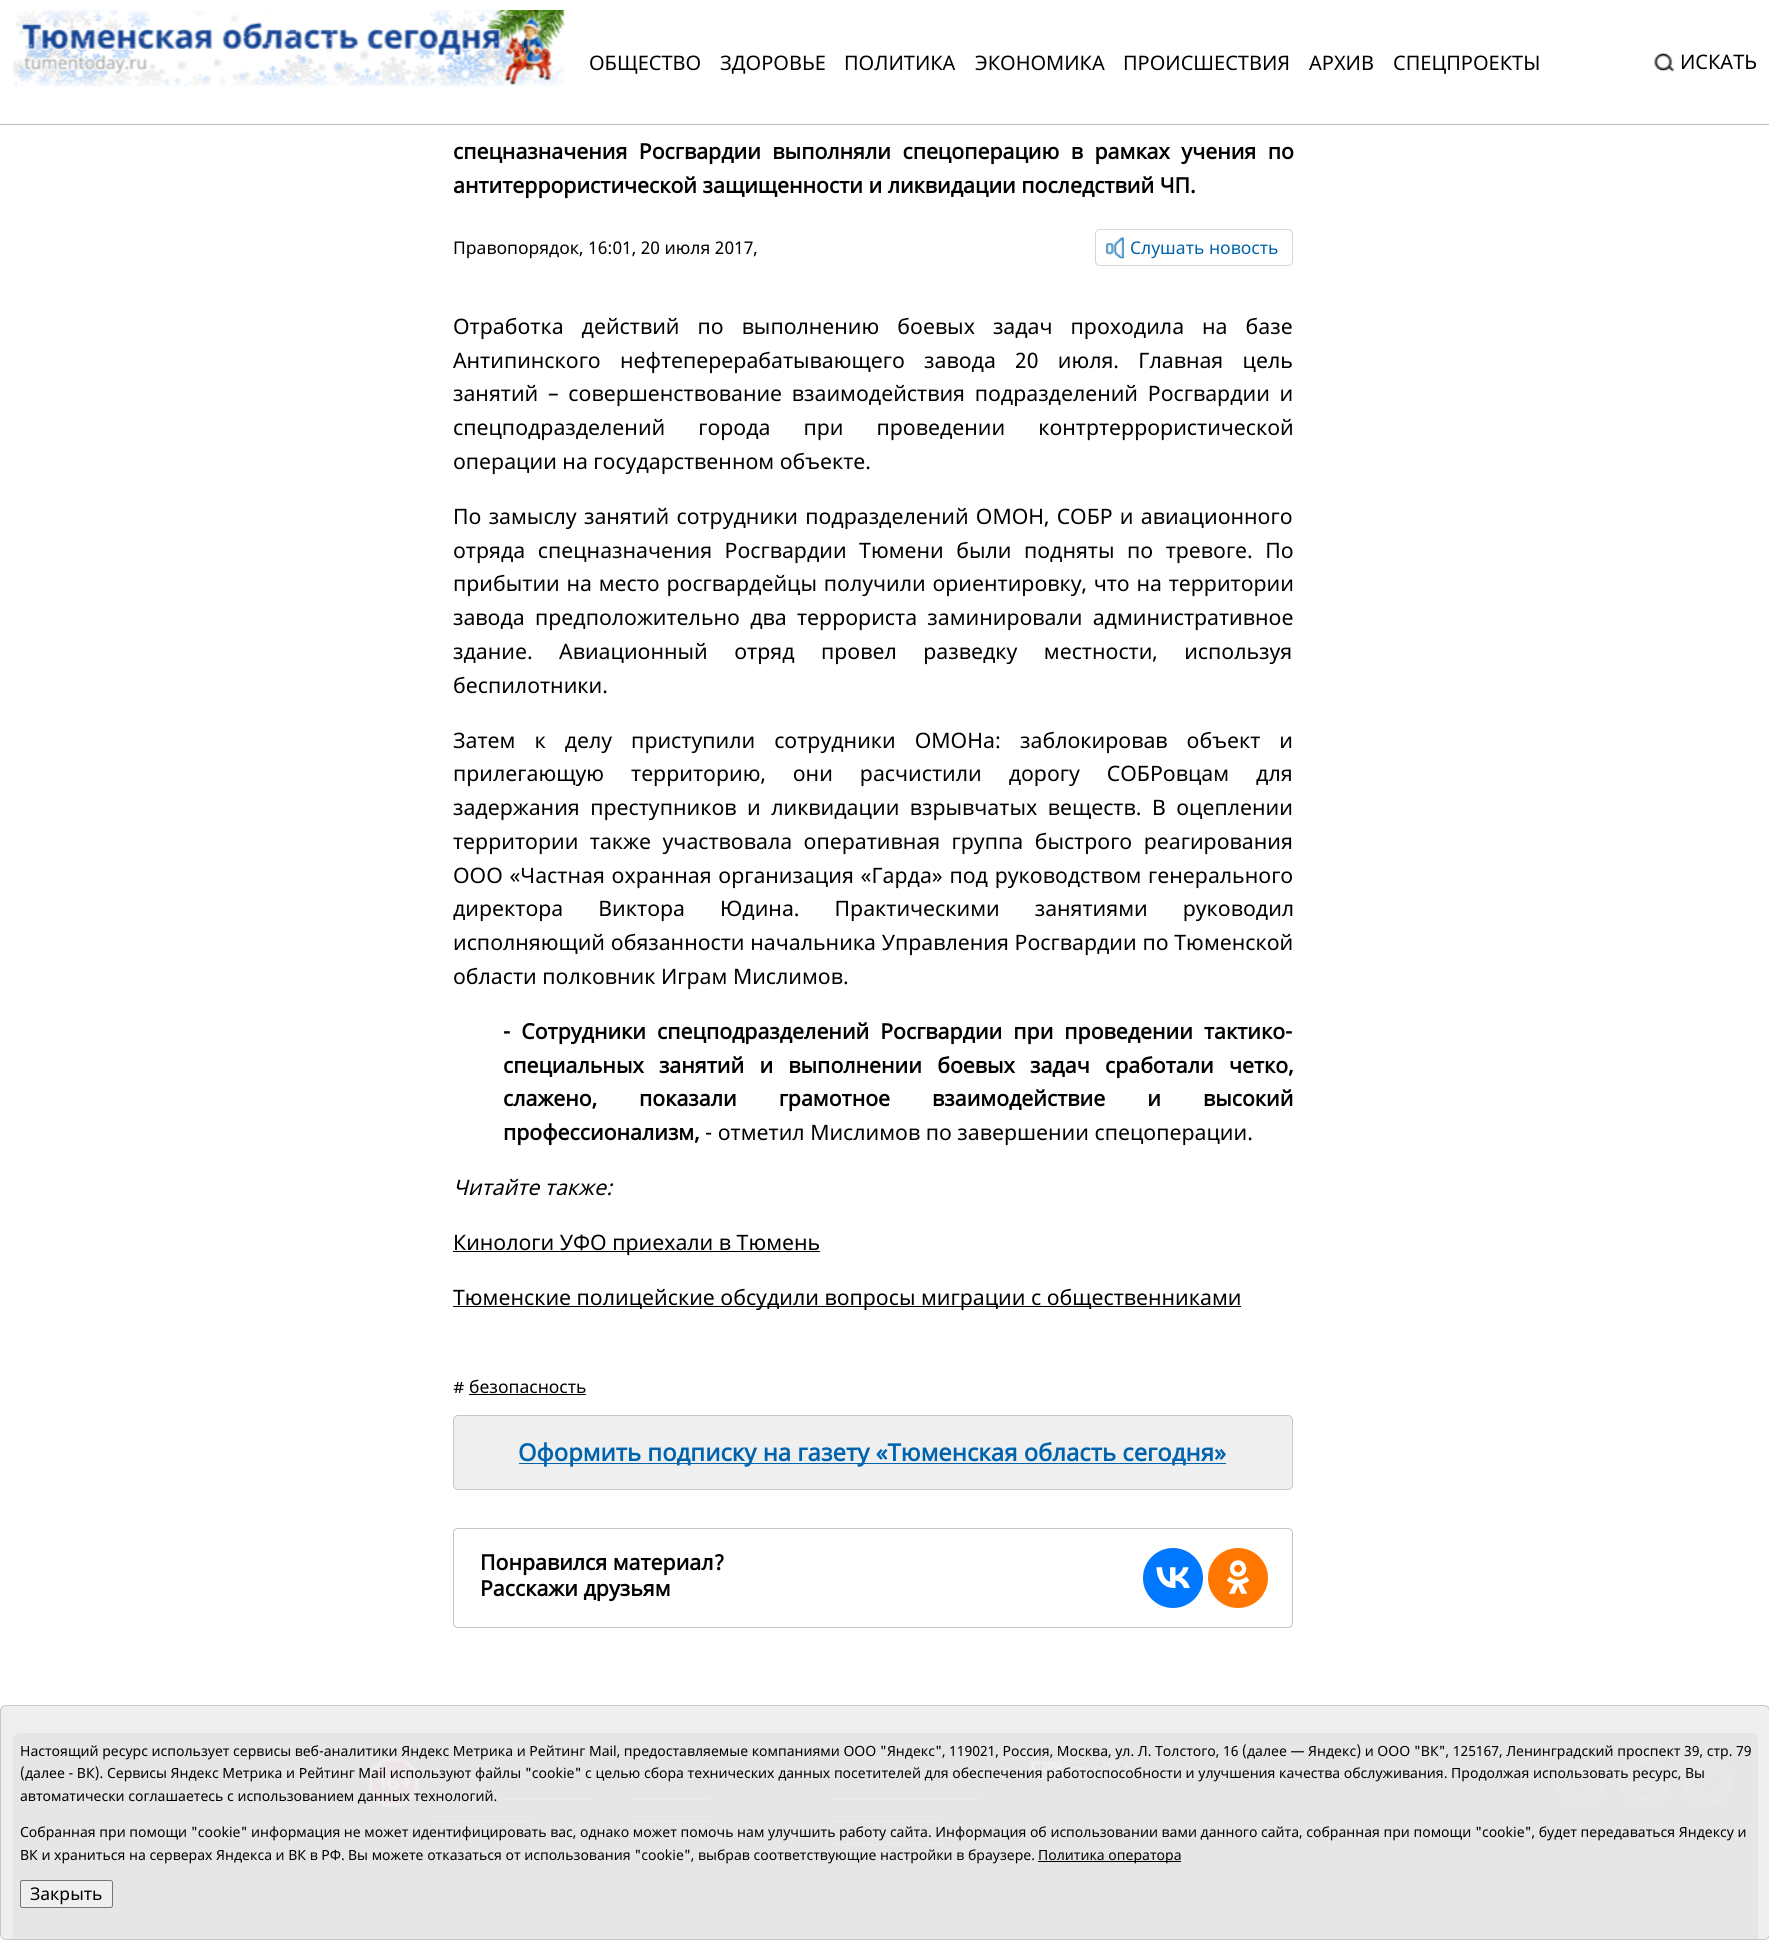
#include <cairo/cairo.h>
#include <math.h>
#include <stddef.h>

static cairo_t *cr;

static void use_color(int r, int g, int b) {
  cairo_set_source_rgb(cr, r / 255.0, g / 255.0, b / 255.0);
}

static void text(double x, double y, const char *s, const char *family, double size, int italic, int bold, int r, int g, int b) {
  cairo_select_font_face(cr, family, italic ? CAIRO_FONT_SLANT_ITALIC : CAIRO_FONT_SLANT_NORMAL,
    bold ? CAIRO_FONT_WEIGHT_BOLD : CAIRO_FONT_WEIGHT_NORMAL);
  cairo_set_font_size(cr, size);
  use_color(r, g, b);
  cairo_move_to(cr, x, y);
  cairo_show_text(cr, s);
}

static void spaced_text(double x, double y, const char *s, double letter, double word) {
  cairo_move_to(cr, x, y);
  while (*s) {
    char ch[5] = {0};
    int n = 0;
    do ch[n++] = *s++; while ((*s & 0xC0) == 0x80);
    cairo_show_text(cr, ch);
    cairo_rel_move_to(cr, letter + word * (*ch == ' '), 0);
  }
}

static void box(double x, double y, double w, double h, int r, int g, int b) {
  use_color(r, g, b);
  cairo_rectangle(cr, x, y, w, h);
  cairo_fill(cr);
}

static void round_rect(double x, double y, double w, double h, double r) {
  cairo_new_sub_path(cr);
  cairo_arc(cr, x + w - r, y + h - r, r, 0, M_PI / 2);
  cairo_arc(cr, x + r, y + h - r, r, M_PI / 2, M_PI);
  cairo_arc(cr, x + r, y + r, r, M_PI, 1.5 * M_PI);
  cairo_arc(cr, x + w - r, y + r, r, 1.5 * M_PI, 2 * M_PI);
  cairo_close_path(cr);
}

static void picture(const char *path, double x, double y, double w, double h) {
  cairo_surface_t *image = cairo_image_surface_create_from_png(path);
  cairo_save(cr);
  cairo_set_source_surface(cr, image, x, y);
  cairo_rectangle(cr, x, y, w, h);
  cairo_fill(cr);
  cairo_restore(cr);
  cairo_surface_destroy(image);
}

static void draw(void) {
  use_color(255, 255, 255);
  cairo_paint(cr);
  box(0, 124, 1769, 1, 188, 188, 188);
  picture("img_01.png", 13, 10, 552, 77);
  picture("img_02.png", 1654, 53, 21, 19);
  round_rect(1095.5, 229.5, 197, 36, 4.5);
  use_color(213, 213, 213);
  cairo_set_line_width(cr, 1);
  cairo_stroke(cr);
  picture("img_03.png", 1106, 236, 18, 23);
  box(453, 1251, 367, 1, 0, 0, 0);
  box(453, 1306, 788, 1, 0, 0, 0);
  box(469, 1394, 117, 1, 0, 0, 0);
  use_color(239, 239, 239);
  round_rect(453.5, 1415.5, 839, 74, 4.5);
  cairo_fill_preserve(cr);
  use_color(198, 198, 198);
  cairo_stroke(cr);
  box(519, 1463, 707, 1, 0, 99, 173);
  round_rect(453.5, 1528.5, 839, 99, 4.5);
  use_color(197, 197, 197);
  cairo_stroke(cr);
  use_color(0, 119, 255);
  cairo_arc(cr, 1173, 1578, 30, 0, 2 * M_PI);
  cairo_fill(cr);
  picture("img_04.png", 1156, 1567, 34, 21);
  use_color(255, 119, 0);
  cairo_arc(cr, 1238, 1578, 30, 0, 2 * M_PI);
  cairo_fill(cr);
  picture("img_05.png", 1226, 1560, 24, 34);
  use_color(64, 64, 64);
  round_rect(13, 1733, 1745, 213, 6);
  cairo_fill(cr);
  picture("img_06.png", 369, 1758, 50, 49);
  picture("img_07.png", 1030, 1760, 100, 20);
  box(430, 1776, 138, 1, 161, 161, 161);
  box(430, 1799, 163, 1, 161, 161, 161);
  box(430, 1821, 103, 1, 161, 161, 161);
  box(630, 1776, 79, 1, 161, 161, 161);
  box(630, 1799, 81, 1, 161, 161, 161);
  box(630, 1821, 84, 1, 161, 161, 161);
  box(830, 1776, 173, 1, 161, 161, 161);
  box(830, 1799, 150, 1, 161, 161, 161);
  box(830, 1821, 109, 1, 161, 161, 161);
  box(830, 1844, 114, 1, 161, 161, 161);
  picture("img_08.png", 1555, 1758, 52, 50);
  picture("img_09.png", 1620, 1758, 50, 50);
  picture("img_10.png", 1682, 1757, 51, 50);
  cairo_set_source_rgba(cr, 0.937, 0.937, 0.937, 0.95);
  round_rect(0.5, 1705.5, 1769, 234, 5.5);
  cairo_fill_preserve(cr);
  use_color(198, 198, 198);
  cairo_stroke(cr);
  box(1038, 1861, 143, 1, 0, 0, 0);
  use_color(239, 239, 239);
  round_rect(20.5, 1880.5, 92, 27, 2);
  cairo_fill_preserve(cr);
  use_color(118, 118, 118);
  cairo_stroke(cr);
  text(589, 70, "ОБЩЕСТВО", "Noto Sans", 20, 0, 0, 0, 0, 0);
  text(720, 70, "ЗДОРОВЬЕ", "Noto Sans", 20, 0, 0, 0, 0, 0);
  text(844, 70, "ПОЛИТИКА", "Noto Sans", 20, 0, 0, 0, 0, 0);
  text(975, 70, "ЭКОНОМИКА", "Noto Sans", 20, 0, 0, 0, 0, 0);
  text(1123, 70, "ПРОИСШЕСТВИЯ", "Noto Sans", 20, 0, 0, 0, 0, 0);
  text(1309, 70, "АРХИВ", "Noto Sans", 20, 0, 0, 0, 0, 0);
  text(1393, 70, "СПЕЦПРОЕКТЫ", "Noto Sans", 20, 0, 0, 0, 0, 0);
  text(1680, 69, "ИСКАТЬ", "Noto Sans", 20, 0, 0, 0, 0, 0);
  cairo_select_font_face(cr, "Noto Sans", CAIRO_FONT_SLANT_NORMAL, CAIRO_FONT_WEIGHT_BOLD);
  cairo_set_font_size(cr, 21.25);
  spaced_text(453, 159, "спецназначения Росгвардии выполняли спецоперацию в рамках учения по", 0, 6);
  text(453, 193, "антитеррористической защищенности и ликвидации последствий ЧП.", "Noto Sans", 21.25, 0, 1, 0, 0, 0);
  text(453, 254, "Правопорядок, 16:01, 20 июля 2017,", "Noto Sans", 17.5, 0, 0, 0, 0, 0);
  text(1130, 254, "Слушать новость", "Noto Sans", 17.5, 0, 0, 0, 99, 173);
  cairo_set_font_size(cr, 21.25);
  use_color(0, 0, 0);
  spaced_text(453, 334, "Отработка действий по выполнению боевых задач проходила на базе", 0, 12.5);
  spaced_text(453, 368, "Антипинского нефтеперерабатывающего завода 20 июля. Главная цель", 0, 13.75);
  spaced_text(453, 401, "занятий – совершенствование взаимодействия подразделений Росгвардии и", 0, 4.25);
  spaced_text(453, 435, "спецподразделений города при проведении контртеррористической", 0, 27.5);
  text(453, 469, "операции на государственном объекте.", "Noto Sans", 21.25, 0, 0, 0, 0, 0);
  spaced_text(453, 524, "По замыслу занятий сотрудники подразделений ОМОН, СОБР и авиационного", 0, 1.75);
  spaced_text(453, 558, "отряда спецназначения Росгвардии Тюмени были подняты по тревоге. По", 0, 7);
  spaced_text(453, 591, "прибытии на место росгвардейцы получили ориентировку, что на территории", 0, 1.25);
  spaced_text(453, 625, "завода предположительно два террориста заминировали административное", 0, 4.75);
  spaced_text(453, 659, "здание. Авиационный отряд провел разведку местности, используя", 0, 21);
  text(453, 693, "беспилотники.", "Noto Sans", 21.25, 0, 0, 0, 0, 0);
  spaced_text(453, 748, "Затем к делу приступили сотрудники ОМОНа: заблокировав объект и", 0, 13.5);
  spaced_text(453, 781, "прилегающую территорию, они расчистили дорогу СОБРовцам для", 0, 21.5);
  spaced_text(453, 815, "задержания преступников и ликвидации взрывчатых веществ. В оцеплении", 0, 5);
  spaced_text(453, 849, "территории также участвовала оперативная группа быстрого реагирования", 0, 6);
  spaced_text(453, 883, "ООО «Частная охранная организация «Гарда» под руководством генерального", 0, 1.25);
  spaced_text(453, 916, "директора Виктора Юдина. Практическими занятиями руководил", 0, 29.5);
  spaced_text(453, 950, "исполняющий обязанности начальника Управления Росгвардии по Тюменской", 0, 0.25);
  text(453, 984, "области полковник Играм Мислимов.", "Noto Sans", 21.25, 0, 0, 0, 0, 0);
  cairo_select_font_face(cr, "Noto Sans", CAIRO_FONT_SLANT_NORMAL, CAIRO_FONT_WEIGHT_BOLD);
  spaced_text(503, 1039, "- Сотрудники спецподразделений Росгвардии при проведении тактико-", 0, 5.5);
  spaced_text(503, 1073, "специальных занятий и выполнении боевых задач сработали четко,", 0, 9.75);
  spaced_text(503, 1106, "слажено, показали грамотное взаимодействие и высокий", 0, 36.5);
  text(503, 1140, "профессионализм,", "Noto Sans", 21.25, 0, 1, 0, 0, 0);
  text(705, 1140, "- отметил Мислимов по завершении спецоперации.", "Noto Sans", 21.25, 0, 0, 0, 0, 0);
  text(453, 1195, "Читайте также:", "Noto Sans", 21.25, 1, 0, 0, 0, 0);
  text(453, 1250, "Кинологи УФО приехали в Тюмень", "Noto Sans", 21.25, 0, 0, 0, 0, 0);
  text(453, 1305, "Тюменские полицейские обсудили вопросы миграции с общественниками", "Noto Sans", 21.25, 0, 0, 0, 0, 0);
  text(453, 1393, "# безопасность", "Noto Sans", 17.5, 0, 0, 0, 0, 0);
  text(518, 1461, "Оформить подписку на газету «Тюменская область сегодня»", "Noto Sans", 23.75, 0, 1, 0, 99, 173);
  text(480, 1570, "Понравился материал?", "Noto Sans", 21.25, 0, 1, 0, 0, 0);
  text(480, 1596, "Расскажи друзьям", "Noto Sans", 21.25, 0, 1, 0, 0, 0);
  text(20, 1756, "Настоящий ресурс использует сервисы веб-аналитики Яндекс Метрика и Рейтинг Mail, предоставляемые компаниями ООО \"Яндекс\", 119021, Россия, Москва, ул. Л. Толстого, 16 (далее — Яндекс) и ООО \"ВК\", 125167, Ленинградский проспект 39, стр. 79", "Noto Sans", 14, 0, 0, 0, 0, 0);
  text(20, 1778, "(далее - ВК). Сервисы Яндекс Метрика и Рейтинг Mail используют файлы \"cookie\" с целью сбора технических данных посетителей для обеспечения работоспособности и улучшения качества обслуживания. Продолжая использовать ресурс, Вы", "Noto Sans", 14, 0, 0, 0, 0, 0);
  text(20, 1801, "автоматически соглашаетесь с использованием данных технологий.", "Noto Sans", 14, 0, 0, 0, 0, 0);
  text(20, 1837, "Собранная при помощи \"cookie\" информация не может идентифицировать вас, однако может помочь нам улучшить работу сайта. Информация об использовании вами данного сайта, собранная при помощи \"cookie\", будет передаваться Яндексу и", "Noto Sans", 14, 0, 0, 0, 0, 0);
  text(20, 1860, "ВК и храниться на серверах Яндекса и ВК в РФ.", "Noto Sans", 14, 0, 0, 0, 0, 0);
  text(348, 1860, "Вы можете отказаться от использования \"cookie\", выбрав соответствующие настройки в браузере.", "Noto Sans", 14, 0, 0, 0, 0, 0);
  text(1038, 1860, "Политика оператора", "Noto Sans", 14, 0, 0, 0, 0, 0);
  text(30, 1900, "Закрыть", "Noto Sans", 17.5, 0, 0, 0, 0, 0);
}

int main(void) {
  cairo_surface_t *surface = cairo_image_surface_create(CAIRO_FORMAT_RGB24, 1769, 1940);
  cr = cairo_create(surface);
  cairo_font_options_t *options = cairo_font_options_create();
  cairo_font_options_set_hint_metrics(options, CAIRO_HINT_METRICS_OFF);
  cairo_font_options_set_hint_style(options, CAIRO_HINT_STYLE_NONE);
  cairo_set_font_options(cr, options);
  cairo_set_miter_limit(cr, 4);
  draw();
  cairo_surface_write_to_png(surface, "out.png");
  cairo_font_options_destroy(options);
  cairo_destroy(cr);
  cairo_surface_destroy(surface);
  return 0;
}
